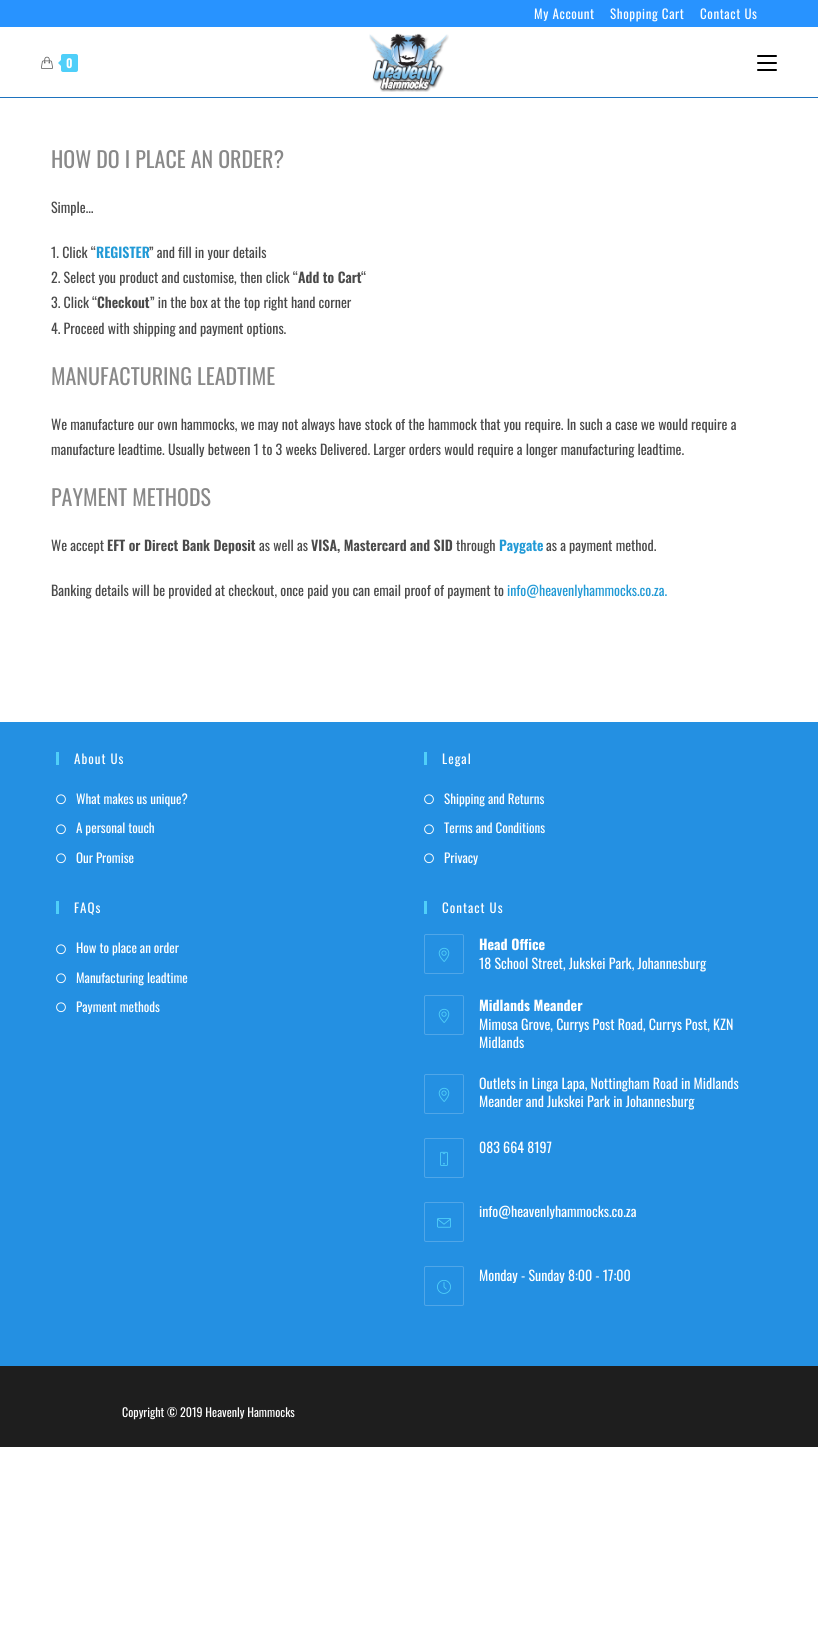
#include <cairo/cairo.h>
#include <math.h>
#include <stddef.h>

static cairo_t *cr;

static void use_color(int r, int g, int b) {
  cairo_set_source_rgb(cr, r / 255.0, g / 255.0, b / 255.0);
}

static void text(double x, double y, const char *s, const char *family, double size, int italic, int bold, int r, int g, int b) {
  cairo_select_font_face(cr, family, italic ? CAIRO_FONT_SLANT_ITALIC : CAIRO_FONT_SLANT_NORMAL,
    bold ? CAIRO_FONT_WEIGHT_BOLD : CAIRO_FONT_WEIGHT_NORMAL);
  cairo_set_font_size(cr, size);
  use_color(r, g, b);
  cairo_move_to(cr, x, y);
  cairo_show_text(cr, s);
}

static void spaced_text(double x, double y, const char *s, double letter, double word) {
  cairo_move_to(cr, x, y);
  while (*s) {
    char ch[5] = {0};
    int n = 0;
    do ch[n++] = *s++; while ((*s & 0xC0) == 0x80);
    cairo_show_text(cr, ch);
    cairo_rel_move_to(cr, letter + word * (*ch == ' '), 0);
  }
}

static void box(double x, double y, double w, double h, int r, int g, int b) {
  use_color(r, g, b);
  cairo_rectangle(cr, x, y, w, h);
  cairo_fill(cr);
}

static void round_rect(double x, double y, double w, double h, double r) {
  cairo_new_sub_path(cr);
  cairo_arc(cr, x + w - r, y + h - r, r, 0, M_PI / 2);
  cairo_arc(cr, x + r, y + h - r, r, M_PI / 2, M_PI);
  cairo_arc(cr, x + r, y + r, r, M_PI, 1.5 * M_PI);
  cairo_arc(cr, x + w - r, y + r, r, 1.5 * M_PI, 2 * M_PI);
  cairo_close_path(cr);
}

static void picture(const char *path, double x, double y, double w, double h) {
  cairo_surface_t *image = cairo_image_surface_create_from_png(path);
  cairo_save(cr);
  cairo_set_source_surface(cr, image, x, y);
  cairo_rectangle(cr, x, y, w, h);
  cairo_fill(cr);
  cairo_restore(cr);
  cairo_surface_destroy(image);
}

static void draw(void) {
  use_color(255, 255, 255);
  cairo_paint(cr);
  box(0, 0, 818, 27, 40, 147, 255);
  box(0, 97, 818, 1, 30, 115, 190);
  picture("img_01.png", 41, 56, 12, 13);
  use_color(79, 207, 249);
  round_rect(61, 54, 17, 18, 2);
  cairo_fill(cr);
  cairo_new_path(cr);
  cairo_move_to(cr, 63, 58);
  cairo_line_to(cr, 63, 68);
  cairo_line_to(cr, 58, 63);
  cairo_close_path(cr);
  cairo_fill(cr);
  picture("img_02.png", 369, 33, 80, 59);
  use_color(0, 0, 0);
  round_rect(757, 69, 20, 2, 1);
  cairo_fill(cr);
  round_rect(757, 55, 20, 2, 1);
  cairo_fill(cr);
  round_rect(757, 62, 20, 2, 1);
  cairo_fill(cr);
  box(0, 722, 818, 644, 36, 144, 226);
  box(56, 752, 3, 13, 79, 207, 249);
  picture("img_03.png", 56, 794, 10, 11);
  picture("img_03.png", 56, 824, 10, 11);
  picture("img_03.png", 56, 853, 10, 11);
  box(424, 752, 3, 13, 79, 207, 249);
  picture("img_03.png", 424, 794, 10, 11);
  picture("img_03.png", 424, 824, 10, 11);
  picture("img_03.png", 424, 853, 10, 11);
  box(56, 901, 3, 13, 79, 207, 249);
  picture("img_03.png", 56, 944, 10, 11);
  picture("img_03.png", 56, 973, 10, 11);
  picture("img_03.png", 56, 1002, 10, 11);
  box(424, 901, 3, 13, 79, 207, 249);
  round_rect(424.5, 934.5, 39, 39, 1.5);
  use_color(80, 166, 232);
  cairo_set_line_width(cr, 1);
  cairo_stroke(cr);
  picture("img_04.png", 438, 947, 12, 15);
  round_rect(424.5, 995.5, 39, 39, 1.5);
  cairo_stroke(cr);
  picture("img_04.png", 438, 1008, 12, 15);
  round_rect(424.5, 1074.5, 39, 39, 1.5);
  cairo_stroke(cr);
  picture("img_04.png", 438, 1087, 12, 15);
  round_rect(424.5, 1138.5, 39, 39, 1.5);
  cairo_stroke(cr);
  picture("img_05.png", 440, 1151, 8, 15);
  round_rect(424.5, 1202.5, 39, 39, 1.5);
  cairo_stroke(cr);
  picture("img_06.png", 437, 1218, 14, 10);
  round_rect(424.5, 1266.5, 39, 39, 1.5);
  cairo_stroke(cr);
  picture("img_07.png", 437, 1280, 14, 14);
  box(0, 1366, 818, 81, 30, 30, 30);
  cairo_select_font_face(cr, "Oswald", CAIRO_FONT_SLANT_NORMAL, CAIRO_FONT_WEIGHT_NORMAL);
  cairo_set_font_size(cr, 13);
  use_color(255, 255, 255);
  spaced_text(534, 19, "My Account", 0.6, 0);
  spaced_text(610, 19, "Shopping Cart", 0.6, 0);
  spaced_text(700, 19, "Contact Us", 0.6, 0);
  cairo_select_font_face(cr, "Oswald SemiBold", CAIRO_FONT_SLANT_NORMAL, CAIRO_FONT_WEIGHT_NORMAL);
  cairo_set_font_size(cr, 12);
  spaced_text(66, 68, "0", 1, 0);
  text(51, 168, "HOW DO I PLACE AN ORDER?", "Oswald", 22, 0, 0, 137, 137, 137);
  text(51, 213, "Simple…", "Oswald", 14, 0, 0, 74, 74, 74);
  text(51, 258, "1. Click “", "Oswald", 14, 0, 0, 74, 74, 74);
  text(96, 258, "REGISTER", "Oswald SemiBold", 14, 0, 0, 34, 154, 214);
  text(149, 258, "” and fill in your details", "Oswald", 14, 0, 0, 74, 74, 74);
  text(51, 283, "2. Select you product and customise, then click “", "Oswald", 14, 0, 0, 74, 74, 74);
  text(298, 283, "Add to Cart", "Oswald SemiBold", 14, 0, 0, 74, 74, 74);
  text(361, 283, "“", "Oswald", 14, 0, 0, 74, 74, 74);
  text(51, 308, "3. Click “", "Oswald", 14, 0, 0, 74, 74, 74);
  text(97, 308, "Checkout", "Oswald SemiBold", 14, 0, 0, 74, 74, 74);
  text(150, 308, "” in the box at the top right hand corner", "Oswald", 14, 0, 0, 74, 74, 74);
  text(51, 334, "4. Proceed with shipping and payment options.", "Oswald", 14, 0, 0, 74, 74, 74);
  text(51, 385, "MANUFACTURING LEADTIME", "Oswald", 22, 0, 0, 137, 137, 137);
  text(51, 430, "We manufacture our own hammocks, we may not always have stock of the hammock that you require. In such a case we would require a", "Oswald", 14, 0, 0, 74, 74, 74);
  text(51, 455, "manufacture leadtime. Usually between 1 to 3 weeks Delivered. Larger orders would require a longer manufacturing leadtime.", "Oswald", 14, 0, 0, 74, 74, 74);
  text(51, 506, "PAYMENT METHODS", "Oswald", 22, 0, 0, 137, 137, 137);
  text(51, 551, "We accept", "Oswald", 14, 0, 0, 74, 74, 74);
  text(107, 551, "EFT or Direct Bank Deposit", "Oswald SemiBold", 14, 0, 0, 74, 74, 74);
  text(259, 551, "as well as", "Oswald", 14, 0, 0, 74, 74, 74);
  text(311, 551, "VISA, Mastercard and SID", "Oswald SemiBold", 14, 0, 0, 74, 74, 74);
  text(456, 551, "through", "Oswald", 14, 0, 0, 74, 74, 74);
  text(499, 551, "Paygate", "Oswald SemiBold", 14, 0, 0, 34, 154, 214);
  text(546, 551, "as a payment method.", "Oswald", 14, 0, 0, 74, 74, 74);
  text(51, 596, "Banking details will be provided at checkout, once paid you can email proof of payment to", "Oswald", 14, 0, 0, 74, 74, 74);
  text(507, 596, "info@heavenlyhammocks.co.za.", "Oswald", 14, 0, 0, 34, 154, 214);
  cairo_set_font_size(cr, 13);
  use_color(255, 255, 255);
  spaced_text(74, 764, "About Us", 1, 0);
  text(76, 804, "What makes us unique?", "Oswald", 13, 0, 0, 255, 255, 255);
  text(76, 833, "A personal touch", "Oswald", 13, 0, 0, 255, 255, 255);
  text(76, 863, "Our Promise", "Oswald", 13, 0, 0, 255, 255, 255);
  spaced_text(442, 764, "Legal", 1, 0);
  text(444, 804, "Shipping and Returns", "Oswald", 13, 0, 0, 255, 255, 255);
  text(444, 833, "Terms and Conditions", "Oswald", 13, 0, 0, 255, 255, 255);
  text(444, 863, "Privacy", "Oswald", 13, 0, 0, 255, 255, 255);
  spaced_text(74, 913, "FAQs", 1, 0);
  text(76, 953, "How to place an order", "Oswald", 13, 0, 0, 255, 255, 255);
  text(76, 983, "Manufacturing leadtime", "Oswald", 13, 0, 0, 255, 255, 255);
  text(76, 1012, "Payment methods", "Oswald", 13, 0, 0, 255, 255, 255);
  spaced_text(442, 913, "Contact Us", 1, 0);
  text(479, 950, "Head Office", "Oswald", 14, 0, 1, 255, 255, 255);
  text(479, 969, "18 School Street, Jukskei Park, Johannesburg", "Oswald", 14, 0, 0, 255, 255, 255);
  text(479, 1011, "Midlands Meander", "Oswald", 14, 0, 1, 255, 255, 255);
  text(479, 1030, "Mimosa Grove, Currys Post Road, Currys Post, KZN", "Oswald", 14, 0, 0, 255, 255, 255);
  text(479, 1048, "Midlands", "Oswald", 14, 0, 0, 255, 255, 255);
  text(479, 1089, "Outlets in Linga Lapa, Nottingham Road in Midlands", "Oswald", 14, 0, 0, 255, 255, 255);
  text(479, 1107, "Meander and Jukskei Park in Johannesburg", "Oswald", 14, 0, 0, 255, 255, 255);
  text(479, 1153, "083 664 8197", "Oswald", 14, 0, 0, 255, 255, 255);
  text(479, 1217, "info@heavenlyhammocks.co.za", "Oswald", 14, 0, 0, 255, 255, 255);
  text(479, 1281, "Monday - Sunday 8:00 - 17:00", "Oswald", 14, 0, 0, 255, 255, 255);
  text(122, 1417, "Copyright © 2019 Heavenly Hammocks", "Oswald", 12, 0, 0, 255, 255, 255);
}

int main(void) {
  cairo_surface_t *surface = cairo_image_surface_create(CAIRO_FORMAT_RGB24, 818, 1628);
  cr = cairo_create(surface);
  cairo_font_options_t *options = cairo_font_options_create();
  cairo_font_options_set_hint_metrics(options, CAIRO_HINT_METRICS_OFF);
  cairo_font_options_set_hint_style(options, CAIRO_HINT_STYLE_NONE);
  cairo_set_font_options(cr, options);
  cairo_set_miter_limit(cr, 4);
  draw();
  cairo_surface_write_to_png(surface, "out.png");
  cairo_font_options_destroy(options);
  cairo_destroy(cr);
  cairo_surface_destroy(surface);
  return 0;
}
